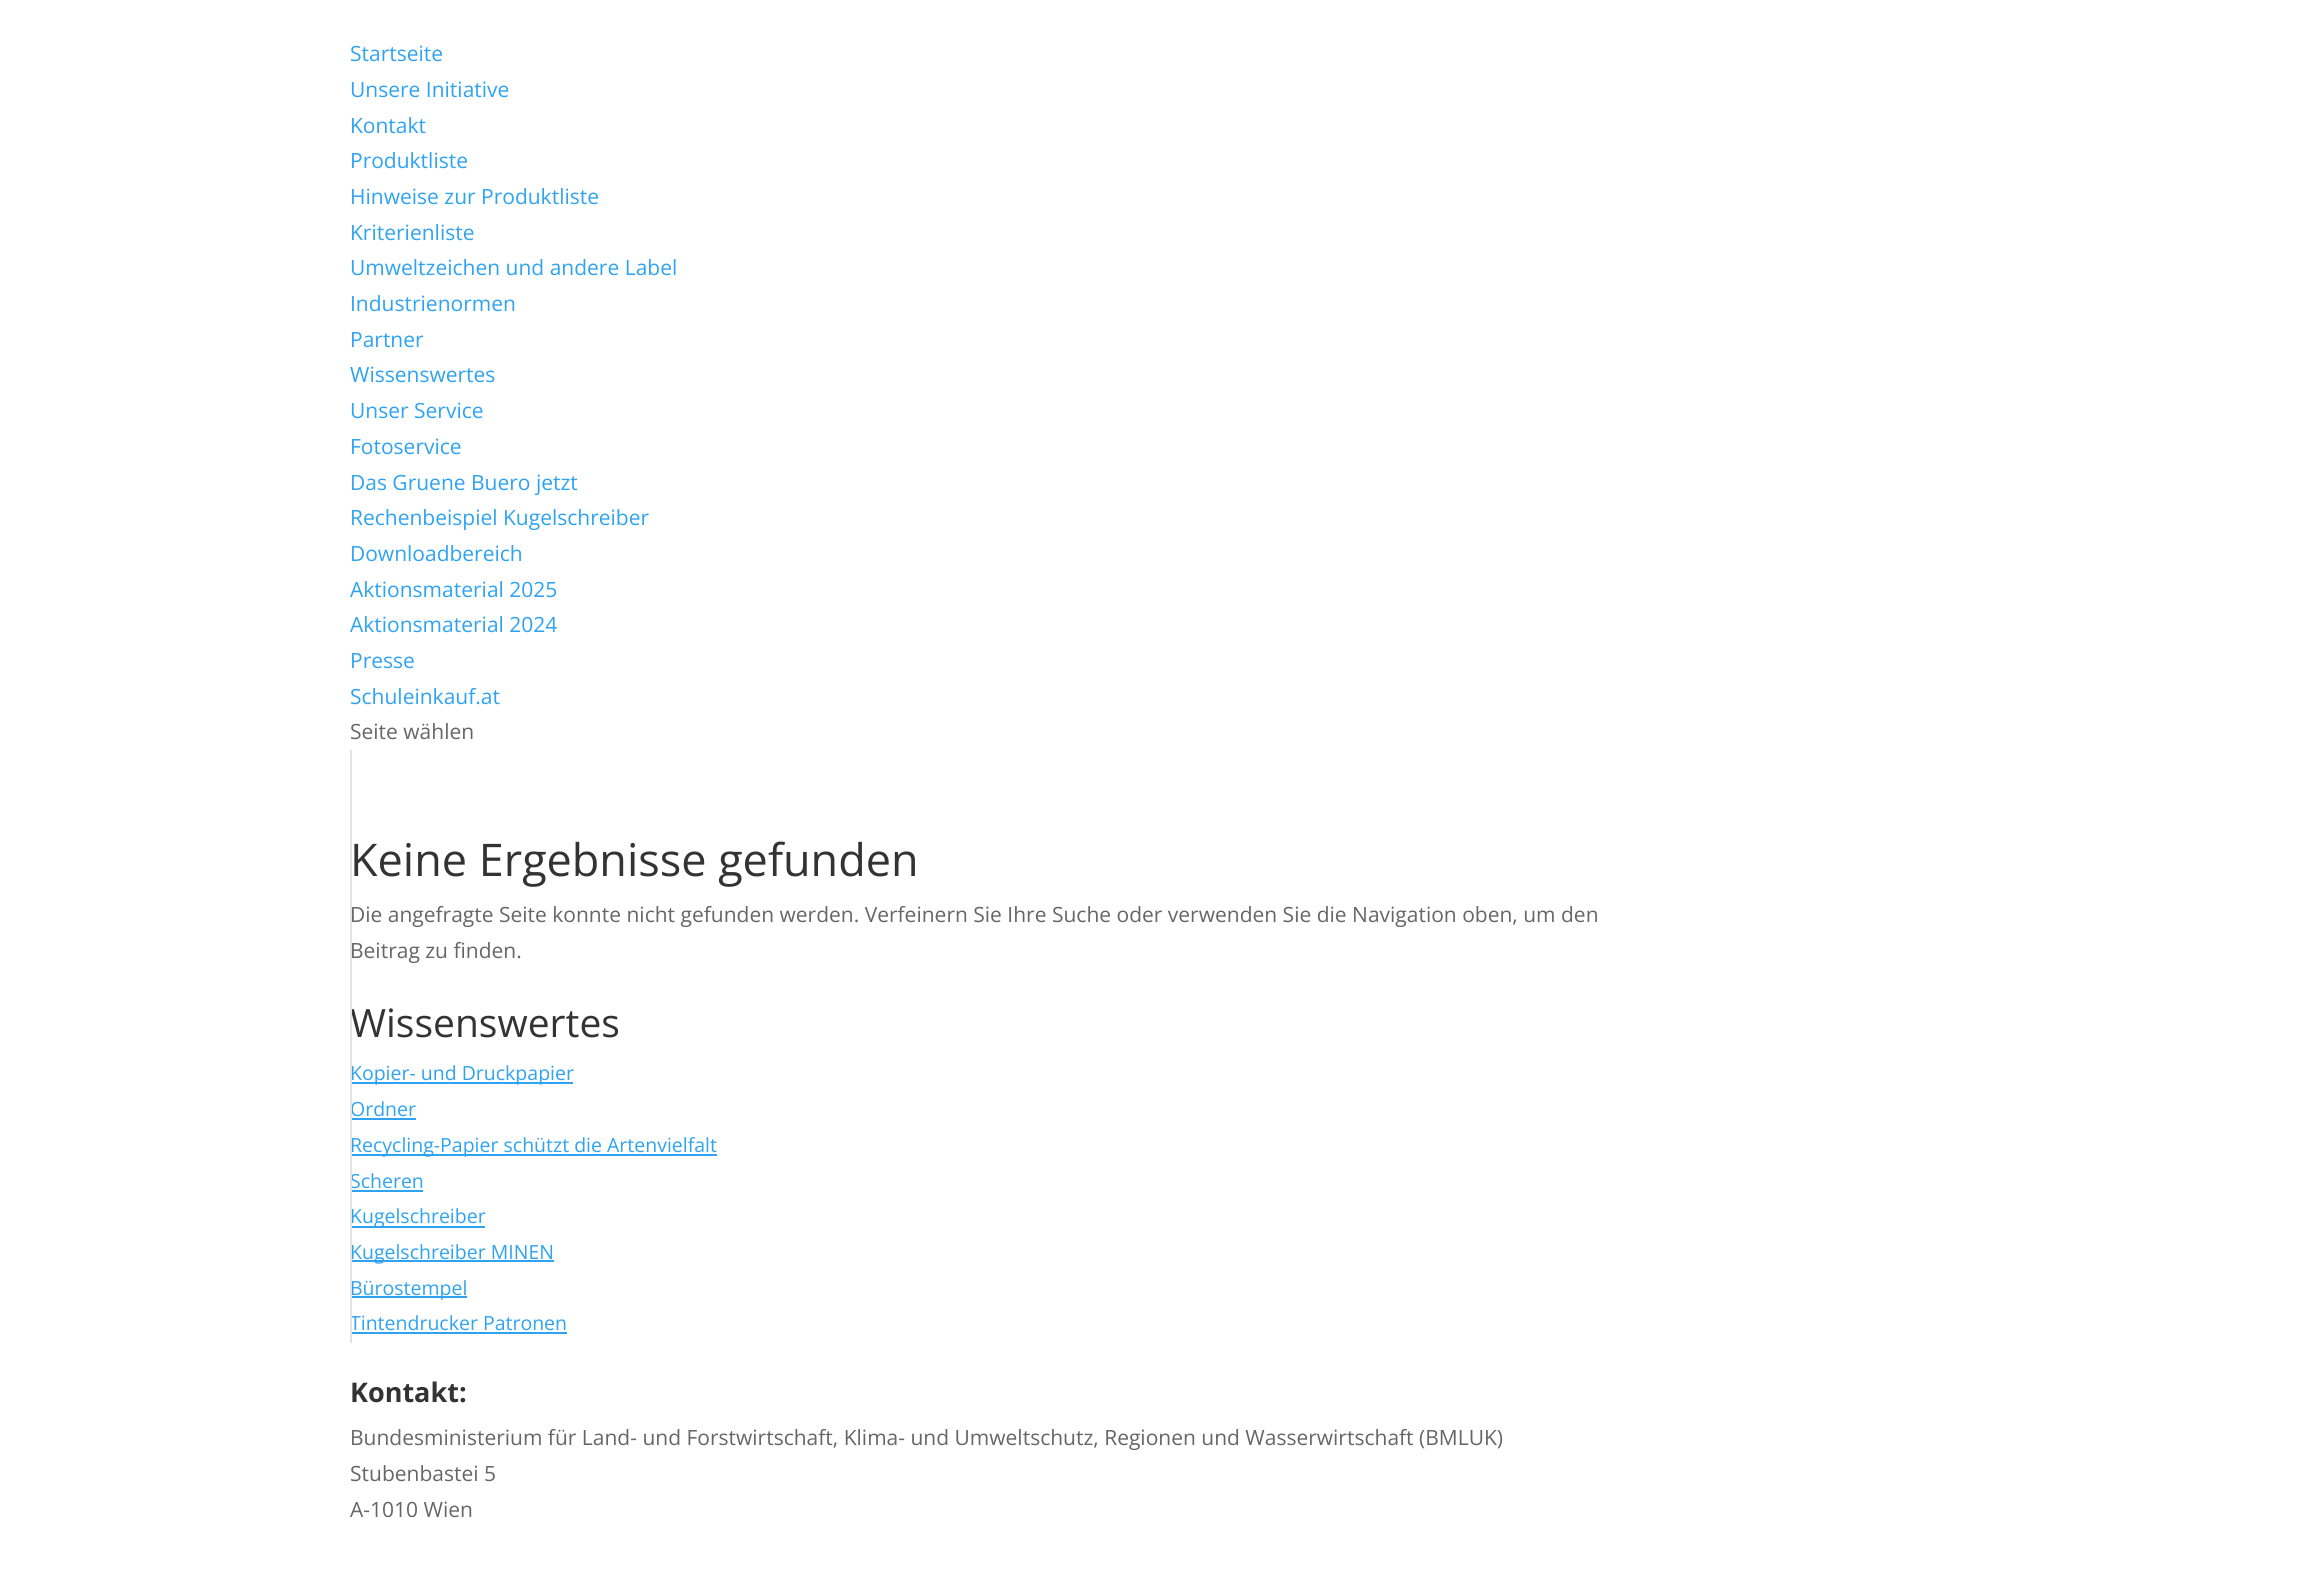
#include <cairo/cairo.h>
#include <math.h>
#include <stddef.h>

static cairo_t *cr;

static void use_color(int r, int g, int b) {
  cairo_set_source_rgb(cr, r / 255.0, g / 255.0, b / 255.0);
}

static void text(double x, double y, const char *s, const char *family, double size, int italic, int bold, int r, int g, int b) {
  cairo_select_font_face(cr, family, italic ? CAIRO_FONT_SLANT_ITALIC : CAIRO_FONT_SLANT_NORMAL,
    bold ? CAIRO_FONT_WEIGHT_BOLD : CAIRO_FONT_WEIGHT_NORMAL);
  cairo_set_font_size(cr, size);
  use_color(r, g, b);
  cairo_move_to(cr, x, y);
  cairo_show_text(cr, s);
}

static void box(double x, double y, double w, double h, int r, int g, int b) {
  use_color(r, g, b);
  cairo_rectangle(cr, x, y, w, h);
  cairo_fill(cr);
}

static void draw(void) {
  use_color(255, 255, 255);
  cairo_paint(cr);
  box(350, 1082, 223, 2, 46, 163, 242);
  box(350, 1118, 66, 2, 46, 163, 242);
  box(350, 1154, 367, 2, 46, 163, 242);
  box(350, 1190, 73, 2, 46, 163, 242);
  box(350, 1226, 135, 2, 46, 163, 242);
  box(350, 1260, 204, 2, 46, 163, 242);
  box(350, 1296, 117, 2, 46, 163, 242);
  box(350, 1332, 217, 2, 46, 163, 242);
  text(350, 61, "Startseite", "Open Sans", 21, 0, 0, 46, 163, 242);
  text(350, 97, "Unsere Initiative", "Open Sans", 21, 0, 0, 46, 163, 242);
  text(350, 133, "Kontakt", "Open Sans", 21, 0, 0, 46, 163, 242);
  text(350, 168, "Produktliste", "Open Sans", 21, 0, 0, 46, 163, 242);
  text(350, 204, "Hinweise zur Produktliste", "Open Sans", 21, 0, 0, 46, 163, 242);
  text(350, 240, "Kriterienliste", "Open Sans", 21, 0, 0, 46, 163, 242);
  text(350, 275, "Umweltzeichen und andere Label", "Open Sans", 21, 0, 0, 46, 163, 242);
  text(350, 311, "Industrienormen", "Open Sans", 21, 0, 0, 46, 163, 242);
  text(350, 347, "Partner", "Open Sans", 21, 0, 0, 46, 163, 242);
  text(350, 382, "Wissenswertes", "Open Sans", 21, 0, 0, 46, 163, 242);
  text(350, 418, "Unser Service", "Open Sans", 21, 0, 0, 46, 163, 242);
  text(350, 454, "Fotoservice", "Open Sans", 21, 0, 0, 46, 163, 242);
  text(350, 490, "Das Gruene Buero jetzt", "Open Sans", 21, 0, 0, 46, 163, 242);
  text(350, 525, "Rechenbeispiel Kugelschreiber", "Open Sans", 21, 0, 0, 46, 163, 242);
  text(350, 561, "Downloadbereich", "Open Sans", 21, 0, 0, 46, 163, 242);
  text(350, 597, "Aktionsmaterial 2025", "Open Sans", 21, 0, 0, 46, 163, 242);
  text(350, 632, "Aktionsmaterial 2024", "Open Sans", 21, 0, 0, 46, 163, 242);
  text(350, 668, "Presse", "Open Sans", 21, 0, 0, 46, 163, 242);
  text(350, 704, "Schuleinkauf.at", "Open Sans", 21, 0, 0, 46, 163, 242);
  text(350, 739, "Seite wählen", "Open Sans", 21, 0, 0, 102, 102, 102);
  text(350, 876, "Keine Ergebnisse gefunden", "Open Sans", 45, 0, 0, 51, 51, 51);
  text(350, 922, "Die angefragte Seite konnte nicht gefunden werden. Verfeinern Sie Ihre Suche oder verwenden Sie die Navigation oben, um den", "Open Sans", 21, 0, 0, 102, 102, 102);
  text(350, 958, "Beitrag zu finden.", "Open Sans", 21, 0, 0, 102, 102, 102);
  text(350, 1037, "Wissenswertes", "Open Sans", 39, 0, 0, 51, 51, 51);
  text(350, 1080, "Kopier- und Druckpapier", "Open Sans", 19.5, 0, 0, 46, 163, 242);
  text(350, 1116, "Ordner", "Open Sans", 19.5, 0, 0, 46, 163, 242);
  text(350, 1152, "Recycling-Papier schützt die Artenvielfalt", "Open Sans", 19.5, 0, 0, 46, 163, 242);
  text(350, 1188, "Scheren", "Open Sans", 19.5, 0, 0, 46, 163, 242);
  text(350, 1223, "Kugelschreiber", "Open Sans", 19.5, 0, 0, 46, 163, 242);
  text(350, 1259, "Kugelschreiber MINEN", "Open Sans", 19.5, 0, 0, 46, 163, 242);
  text(350, 1295, "Bürostempel", "Open Sans", 19.5, 0, 0, 46, 163, 242);
  text(350, 1330, "Tintendrucker Patronen", "Open Sans", 19.5, 0, 0, 46, 163, 242);
  box(350, 750, 2, 593, 226, 226, 226);
  text(350, 1402, "Kontakt:", "Open Sans", 27, 0, 1, 51, 51, 51);
  text(350, 1445, "Bundesministerium für Land- und Forstwirtschaft, Klima- und Umweltschutz, Regionen und Wasserwirtschaft (BMLUK)", "Open Sans", 21, 0, 0, 102, 102, 102);
  text(350, 1481, "Stubenbastei 5", "Open Sans", 21, 0, 0, 102, 102, 102);
  text(350, 1517, "A-1010 Wien", "Open Sans", 21, 0, 0, 102, 102, 102);
}

int main(void) {
  cairo_surface_t *surface = cairo_image_surface_create(CAIRO_FORMAT_RGB24, 2318, 1578);
  cr = cairo_create(surface);
  cairo_font_options_t *options = cairo_font_options_create();
  cairo_font_options_set_hint_metrics(options, CAIRO_HINT_METRICS_OFF);
  cairo_font_options_set_hint_style(options, CAIRO_HINT_STYLE_NONE);
  cairo_set_font_options(cr, options);
  cairo_set_miter_limit(cr, 4);
  draw();
  cairo_surface_write_to_png(surface, "out.png");
  cairo_font_options_destroy(options);
  cairo_destroy(cr);
  cairo_surface_destroy(surface);
  return 0;
}
